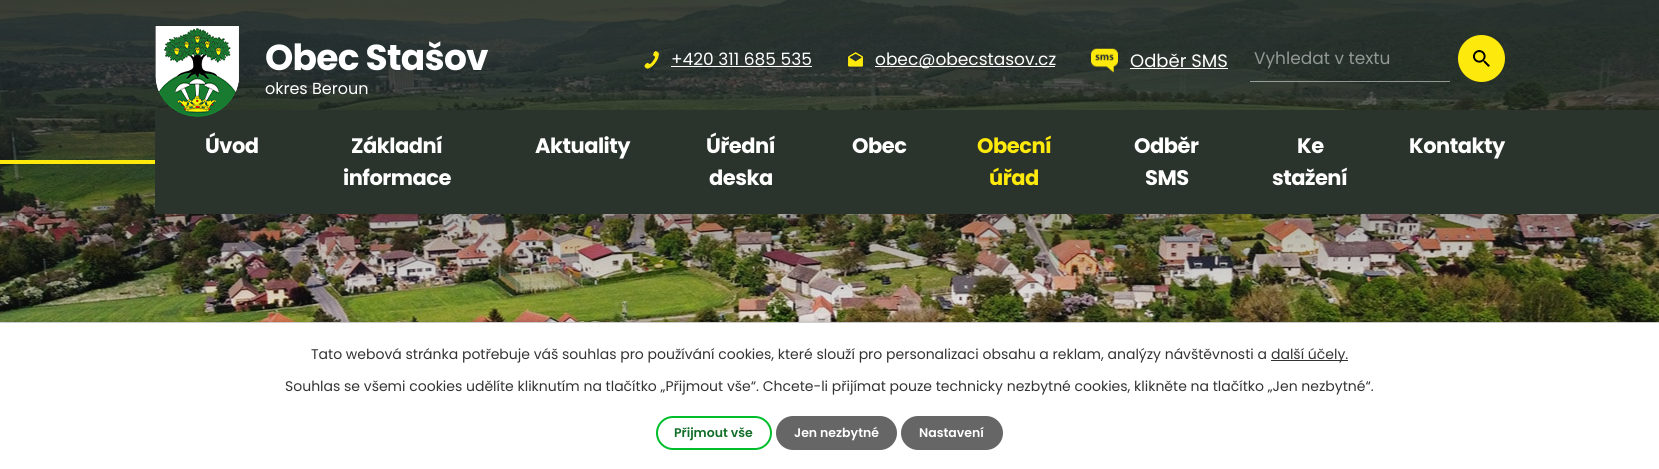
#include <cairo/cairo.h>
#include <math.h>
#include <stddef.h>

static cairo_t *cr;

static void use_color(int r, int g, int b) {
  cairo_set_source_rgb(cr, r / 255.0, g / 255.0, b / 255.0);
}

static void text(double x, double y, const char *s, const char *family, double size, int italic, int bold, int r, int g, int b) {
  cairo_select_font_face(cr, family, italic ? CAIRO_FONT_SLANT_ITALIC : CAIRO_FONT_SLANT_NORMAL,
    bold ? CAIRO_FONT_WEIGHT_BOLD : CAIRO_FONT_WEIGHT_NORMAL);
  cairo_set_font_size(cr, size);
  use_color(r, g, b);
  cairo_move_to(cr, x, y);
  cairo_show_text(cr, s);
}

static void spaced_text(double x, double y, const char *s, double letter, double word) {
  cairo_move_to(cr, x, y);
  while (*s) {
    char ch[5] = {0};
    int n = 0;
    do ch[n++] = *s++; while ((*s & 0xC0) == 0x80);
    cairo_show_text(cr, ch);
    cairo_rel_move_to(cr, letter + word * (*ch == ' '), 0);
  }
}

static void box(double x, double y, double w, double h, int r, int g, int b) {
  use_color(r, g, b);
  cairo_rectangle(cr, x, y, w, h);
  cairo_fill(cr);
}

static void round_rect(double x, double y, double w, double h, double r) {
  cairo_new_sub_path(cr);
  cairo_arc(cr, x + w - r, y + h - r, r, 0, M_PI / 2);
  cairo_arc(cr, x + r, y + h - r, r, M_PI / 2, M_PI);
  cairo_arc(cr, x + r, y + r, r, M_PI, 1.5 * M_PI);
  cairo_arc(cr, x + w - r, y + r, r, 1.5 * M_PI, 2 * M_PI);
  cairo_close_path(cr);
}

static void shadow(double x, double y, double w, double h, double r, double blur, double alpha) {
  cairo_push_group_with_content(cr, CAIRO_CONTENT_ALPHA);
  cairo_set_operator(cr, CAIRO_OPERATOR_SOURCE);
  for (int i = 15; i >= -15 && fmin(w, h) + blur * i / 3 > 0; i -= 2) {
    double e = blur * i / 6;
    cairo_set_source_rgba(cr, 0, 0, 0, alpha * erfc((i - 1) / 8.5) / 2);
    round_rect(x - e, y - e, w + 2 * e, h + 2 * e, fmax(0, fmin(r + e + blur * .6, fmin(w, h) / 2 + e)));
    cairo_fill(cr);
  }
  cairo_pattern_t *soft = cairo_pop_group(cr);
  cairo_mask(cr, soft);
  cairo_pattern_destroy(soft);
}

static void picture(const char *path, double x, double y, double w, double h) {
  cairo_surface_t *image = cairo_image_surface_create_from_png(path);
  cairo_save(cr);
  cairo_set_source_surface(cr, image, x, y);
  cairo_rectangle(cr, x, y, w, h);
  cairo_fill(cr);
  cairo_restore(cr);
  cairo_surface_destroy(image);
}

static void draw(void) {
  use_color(255, 255, 255);
  cairo_paint(cr);
  picture("img_01.png", 0, 0, 1659, 322);
  box(155, 110, 1504, 104, 42, 51, 44);
  picture("img_02.png", 155, 25, 84, 92);
  picture("img_03.png", 644, 51, 15, 18);
  box(671, 66, 141, 1, 255, 255, 255);
  picture("img_04.png", 848, 52, 15, 15);
  box(875, 66, 180, 1, 255, 255, 255);
  picture("img_05.png", 1091, 48, 27, 25);
  box(1130, 68, 98, 1, 255, 255, 255);
  cairo_set_source_rgba(cr, 1, 1, 1, 0.5);
  cairo_rectangle(cr, 1250, 81, 200, 1);
  cairo_fill(cr);
  use_color(253, 233, 11);
  cairo_arc(cr, 1481.5, 58.5, 23.5, 0, 2 * M_PI);
  cairo_fill(cr);
  picture("img_06.png", 1473, 50, 17, 17);
  box(0, 160, 155, 4, 253, 233, 11);
  use_color(0, 0, 0);
  shadow(0, 322, 1659, 147, 0, 2.5, 0.2);
  box(0, 323, 1659, 146, 255, 255, 255);
  box(0, 322, 1659, 1, 204, 204, 204);
  box(1271, 360, 77, 1, 51, 51, 51);
  round_rect(657, 417, 114, 32, 16);
  use_color(0, 189, 44);
  cairo_stroke(cr);
  use_color(102, 102, 102);
  round_rect(777, 417, 119, 32, 16);
  cairo_fill_preserve(cr);
  cairo_stroke(cr);
  round_rect(902, 417, 100, 32, 16);
  cairo_fill_preserve(cr);
  cairo_stroke(cr);
  cairo_select_font_face(cr, "Poppins", CAIRO_FONT_SLANT_NORMAL, CAIRO_FONT_WEIGHT_BOLD);
  cairo_set_font_size(cr, 36);
  use_color(255, 255, 255);
  spaced_text(265, 70, "Obec Stašov", -0.75, 0);
  text(265, 94, "okres Beroun", "Poppins", 16, 0, 0, 255, 255, 255);
  text(671, 65, "+420 311 685 535", "Poppins", 17, 0, 0, 255, 255, 255);
  text(875, 65, "obec@obecstasov.cz", "Poppins", 17, 0, 0, 255, 255, 255);
  text(1130, 67, "Odběr SMS", "Poppins", 18, 0, 0, 255, 255, 255);
  text(1254, 64, "Vyhledat v textu", "Poppins", 17, 0, 0, 147, 152, 149);
  cairo_select_font_face(cr, "Poppins", CAIRO_FONT_SLANT_NORMAL, CAIRO_FONT_WEIGHT_BOLD);
  cairo_set_font_size(cr, 21);
  use_color(255, 255, 255);
  spaced_text(205, 153, "Úvod", -0.5, 0);
  spaced_text(351, 153, "Základní", -0.5, 0);
  spaced_text(343, 185, "informace", -0.5, 0);
  spaced_text(535, 153, "Aktuality", -0.5, 0);
  spaced_text(706, 153, "Úřední", -0.5, 0);
  spaced_text(709, 185, "deska", -0.5, 0);
  spaced_text(852, 153, "Obec", -0.5, 0);
  use_color(253, 233, 11);
  spaced_text(977, 153, "Obecní", -0.5, 0);
  spaced_text(989, 185, "úřad", -0.5, 0);
  use_color(255, 255, 255);
  spaced_text(1134, 153, "Odběr", -0.5, 0);
  spaced_text(1145, 185, "SMS", -0.5, 0);
  spaced_text(1297, 153, "Ke", -0.5, 0);
  spaced_text(1272, 185, "stažení", -0.5, 0);
  spaced_text(1409, 153, "Kontakty", -0.5, 0);
  text(311, 359, "Tato webová stránka potřebuje váš souhlas pro používání cookies, které slouží pro personalizaci obsahu a reklam, analýzy návštěvnosti a", "Poppins", 14, 0, 0, 51, 51, 51);
  text(1271, 359, "další účely.", "Poppins", 14, 0, 0, 51, 51, 51);
  text(285, 391, "Souhlas se všemi cookies udělíte kliknutím na tlačítko „Přijmout vše“. Chcete-li přijímat pouze technicky nezbytné cookies, klikněte na tlačítko „Jen nezbytné“.", "Poppins", 14, 0, 0, 51, 51, 51);
  text(674, 437, "Přijmout vše", "Poppins SemiBold", 12.5, 0, 0, 17, 110, 40);
  text(794, 437, "Jen nezbytné", "Poppins SemiBold", 12.5, 0, 0, 255, 255, 255);
  text(919, 437, "Nastavení", "Poppins SemiBold", 12.5, 0, 0, 255, 255, 255);
}

int main(void) {
  cairo_surface_t *surface = cairo_image_surface_create(CAIRO_FORMAT_RGB24, 1659, 469);
  cr = cairo_create(surface);
  cairo_font_options_t *options = cairo_font_options_create();
  cairo_font_options_set_hint_metrics(options, CAIRO_HINT_METRICS_OFF);
  cairo_font_options_set_hint_style(options, CAIRO_HINT_STYLE_NONE);
  cairo_set_font_options(cr, options);
  cairo_set_miter_limit(cr, 4);
  draw();
  cairo_surface_write_to_png(surface, "out.png");
  cairo_font_options_destroy(options);
  cairo_destroy(cr);
  cairo_surface_destroy(surface);
  return 0;
}
